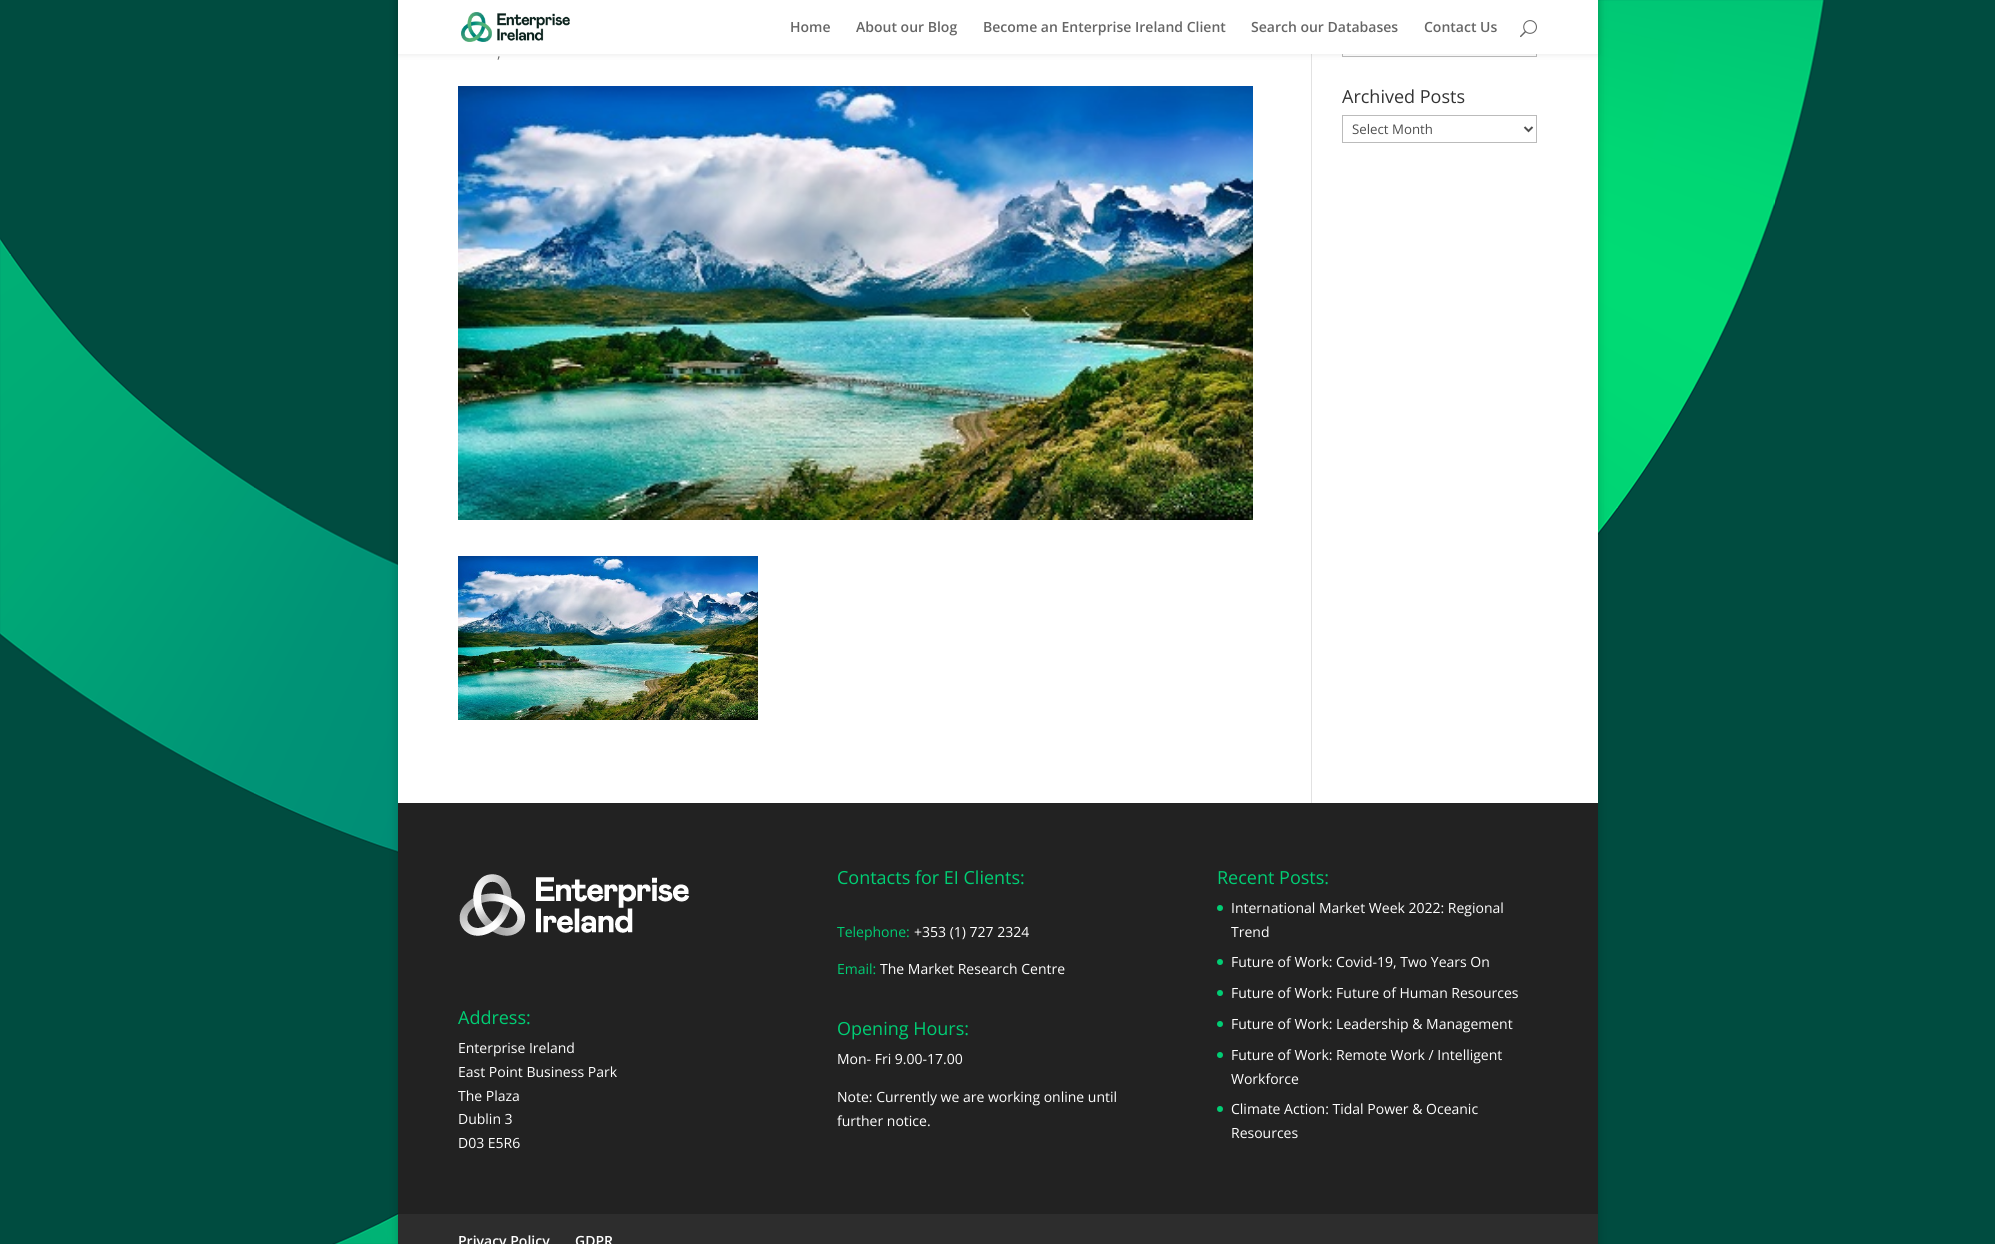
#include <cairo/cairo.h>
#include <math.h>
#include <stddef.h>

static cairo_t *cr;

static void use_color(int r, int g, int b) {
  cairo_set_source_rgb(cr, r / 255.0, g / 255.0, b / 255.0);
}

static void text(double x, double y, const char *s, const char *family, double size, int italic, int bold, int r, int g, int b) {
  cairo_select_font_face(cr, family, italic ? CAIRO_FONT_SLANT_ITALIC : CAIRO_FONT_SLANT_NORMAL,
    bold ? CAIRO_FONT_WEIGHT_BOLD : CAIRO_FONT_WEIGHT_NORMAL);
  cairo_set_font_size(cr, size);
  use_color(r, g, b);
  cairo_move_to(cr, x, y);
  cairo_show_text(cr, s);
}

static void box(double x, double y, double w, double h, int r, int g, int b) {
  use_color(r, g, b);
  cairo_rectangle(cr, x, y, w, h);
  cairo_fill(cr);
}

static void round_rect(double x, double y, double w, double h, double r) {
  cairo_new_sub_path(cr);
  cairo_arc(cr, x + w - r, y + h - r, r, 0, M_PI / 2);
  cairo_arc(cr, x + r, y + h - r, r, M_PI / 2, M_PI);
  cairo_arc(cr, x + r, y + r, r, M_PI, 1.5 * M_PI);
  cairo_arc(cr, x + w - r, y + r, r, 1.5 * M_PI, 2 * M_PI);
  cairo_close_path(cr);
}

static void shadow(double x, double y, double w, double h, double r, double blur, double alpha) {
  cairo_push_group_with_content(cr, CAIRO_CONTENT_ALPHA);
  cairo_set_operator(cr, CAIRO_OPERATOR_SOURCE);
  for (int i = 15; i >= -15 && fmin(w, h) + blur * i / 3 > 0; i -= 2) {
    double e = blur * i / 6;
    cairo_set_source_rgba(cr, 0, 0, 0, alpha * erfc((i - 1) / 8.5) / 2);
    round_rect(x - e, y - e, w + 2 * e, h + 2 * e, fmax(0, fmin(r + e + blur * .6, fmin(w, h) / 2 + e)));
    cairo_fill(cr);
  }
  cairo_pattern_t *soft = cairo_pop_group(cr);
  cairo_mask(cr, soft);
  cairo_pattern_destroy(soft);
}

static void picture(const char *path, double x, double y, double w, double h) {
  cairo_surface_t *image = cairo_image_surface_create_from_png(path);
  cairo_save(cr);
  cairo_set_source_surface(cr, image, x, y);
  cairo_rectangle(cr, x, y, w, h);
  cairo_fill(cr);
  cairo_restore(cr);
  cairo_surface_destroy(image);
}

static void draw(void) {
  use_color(0, 76, 64);
  cairo_paint(cr);
  picture("img_01.png", 0, 0, 1825, 1244);
  use_color(0, 0, 0);
  shadow(398, -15, 1200, 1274, 0, 5, 0.2);
  box(398, 54, 1200, 749, 255, 255, 255);
  box(1311, 54, 1, 749, 226, 226, 226);
  cairo_rectangle(cr, 1342.5, 29.5, 194, 27);
  use_color(187, 187, 187);
  cairo_set_line_width(cr, 1);
  cairo_stroke(cr);
  use_color(0, 0, 0);
  shadow(398, 0, 1200, 54, 0, 3.5, 0.1);
  box(398, 0, 1200, 54, 255, 255, 255);
  picture("img_02.png", 461, 12, 109, 30);
  picture("img_03.png", 1520, 20, 17, 18);
  picture("img_04.png", 458, 86, 795, 434);
  picture("img_05.png", 458, 556, 300, 164);
  cairo_rectangle(cr, 1342.5, 115.5, 194, 27);
  use_color(187, 187, 187);
  cairo_stroke(cr);
  cairo_new_path(cr);
  cairo_move_to(cr, 1524.5, 127);
  cairo_line_to(cr, 1528.5, 131);
  cairo_line_to(cr, 1532.5, 127);
  use_color(78, 78, 78);
  cairo_set_line_width(cr, 2);
  cairo_stroke(cr);
  box(398, 803, 1200, 411, 34, 34, 34);
  picture("img_06.png", 459, 874, 231, 62);
  use_color(0, 206, 116);
  cairo_arc(cr, 1220, 908, 3, 0, 2 * M_PI);
  cairo_fill(cr);
  cairo_arc(cr, 1220, 962, 3, 0, 2 * M_PI);
  cairo_fill(cr);
  cairo_arc(cr, 1220, 993, 3, 0, 2 * M_PI);
  cairo_fill(cr);
  cairo_arc(cr, 1220, 1024, 3, 0, 2 * M_PI);
  cairo_fill(cr);
  cairo_arc(cr, 1220, 1055, 3, 0, 2 * M_PI);
  cairo_fill(cr);
  cairo_arc(cr, 1220, 1109, 3, 0, 2 * M_PI);
  cairo_fill(cr);
  box(398, 1214, 1200, 30, 45, 45, 45);
  text(790, 32, "Home", "Open Sans SemiBold", 14, 0, 0, 102, 102, 102);
  text(856, 32, "About our Blog", "Open Sans SemiBold", 14, 0, 0, 102, 102, 102);
  text(983, 32, "Become an Enterprise Ireland Client", "Open Sans SemiBold", 14, 0, 0, 102, 102, 102);
  text(1251, 32, "Search our Databases", "Open Sans SemiBold", 14, 0, 0, 102, 102, 102);
  text(1424, 32, "Contact Us", "Open Sans SemiBold", 14, 0, 0, 102, 102, 102);
  text(497, 58, ",", "Open Sans", 14, 0, 0, 102, 102, 102);
  text(1342, 103, "Archived Posts", "Open Sans", 18, 0, 0, 51, 51, 51);
  text(1352, 134, "Select Month", "Open Sans", 13.25, 0, 0, 78, 78, 78);
  text(458, 1024, "Address:", "Open Sans", 18, 0, 0, 0, 206, 116);
  text(458, 1053, "Enterprise Ireland", "Open Sans", 14, 0, 0, 255, 255, 255);
  text(458, 1077, "East Point Business Park", "Open Sans", 14, 0, 0, 255, 255, 255);
  text(458, 1101, "The Plaza", "Open Sans", 14, 0, 0, 255, 255, 255);
  text(458, 1124, "Dublin 3", "Open Sans", 14, 0, 0, 255, 255, 255);
  text(458, 1148, "D03 E5R6", "Open Sans", 14, 0, 0, 255, 255, 255);
  text(837, 884, "Contacts for EI Clients:", "Open Sans", 18, 0, 0, 0, 206, 116);
  text(837, 937, "Telephone:", "Open Sans", 14, 0, 0, 0, 206, 116);
  text(914, 937, "+353 (1) 727 2324", "Open Sans", 14, 0, 0, 255, 255, 255);
  text(837, 974, "Email:", "Open Sans", 14, 0, 0, 0, 206, 116);
  text(880, 974, "The Market Research Centre", "Open Sans", 14, 0, 0, 255, 255, 255);
  text(837, 1035, "Opening Hours:", "Open Sans", 18, 0, 0, 0, 206, 116);
  text(837, 1064, "Mon- Fri 9.00-17.00", "Open Sans", 14, 0, 0, 255, 255, 255);
  text(837, 1102, "Note: Currently we are working online until", "Open Sans", 14, 0, 0, 255, 255, 255);
  text(837, 1126, "further notice.", "Open Sans", 14, 0, 0, 255, 255, 255);
  text(1217, 884, "Recent Posts:", "Open Sans", 18, 0, 0, 0, 206, 116);
  text(1231, 913, "International Market Week 2022: Regional", "Open Sans", 14, 0, 0, 255, 255, 255);
  text(1231, 937, "Trend", "Open Sans", 14, 0, 0, 255, 255, 255);
  text(1231, 967, "Future of Work: Covid-19, Two Years On", "Open Sans", 14, 0, 0, 255, 255, 255);
  text(1231, 998, "Future of Work: Future of Human Resources", "Open Sans", 14, 0, 0, 255, 255, 255);
  text(1231, 1029, "Future of Work: Leadership & Management", "Open Sans", 14, 0, 0, 255, 255, 255);
  text(1231, 1060, "Future of Work: Remote Work / Intelligent", "Open Sans", 14, 0, 0, 255, 255, 255);
  text(1231, 1084, "Workforce", "Open Sans", 14, 0, 0, 255, 255, 255);
  text(1231, 1114, "Climate Action: Tidal Power & Oceanic", "Open Sans", 14, 0, 0, 255, 255, 255);
  text(1231, 1138, "Resources", "Open Sans", 14, 0, 0, 255, 255, 255);
  text(458, 1246, "Privacy Policy", "Open Sans SemiBold", 14, 0, 0, 255, 255, 255);
  text(575, 1246, "GDPR", "Open Sans SemiBold", 14, 0, 0, 255, 255, 255);
}

int main(void) {
  cairo_surface_t *surface = cairo_image_surface_create(CAIRO_FORMAT_RGB24, 1995, 1244);
  cr = cairo_create(surface);
  cairo_font_options_t *options = cairo_font_options_create();
  cairo_font_options_set_hint_metrics(options, CAIRO_HINT_METRICS_OFF);
  cairo_font_options_set_hint_style(options, CAIRO_HINT_STYLE_NONE);
  cairo_set_font_options(cr, options);
  cairo_set_miter_limit(cr, 4);
  draw();
  cairo_surface_write_to_png(surface, "out.png");
  cairo_font_options_destroy(options);
  cairo_destroy(cr);
  cairo_surface_destroy(surface);
  return 0;
}
